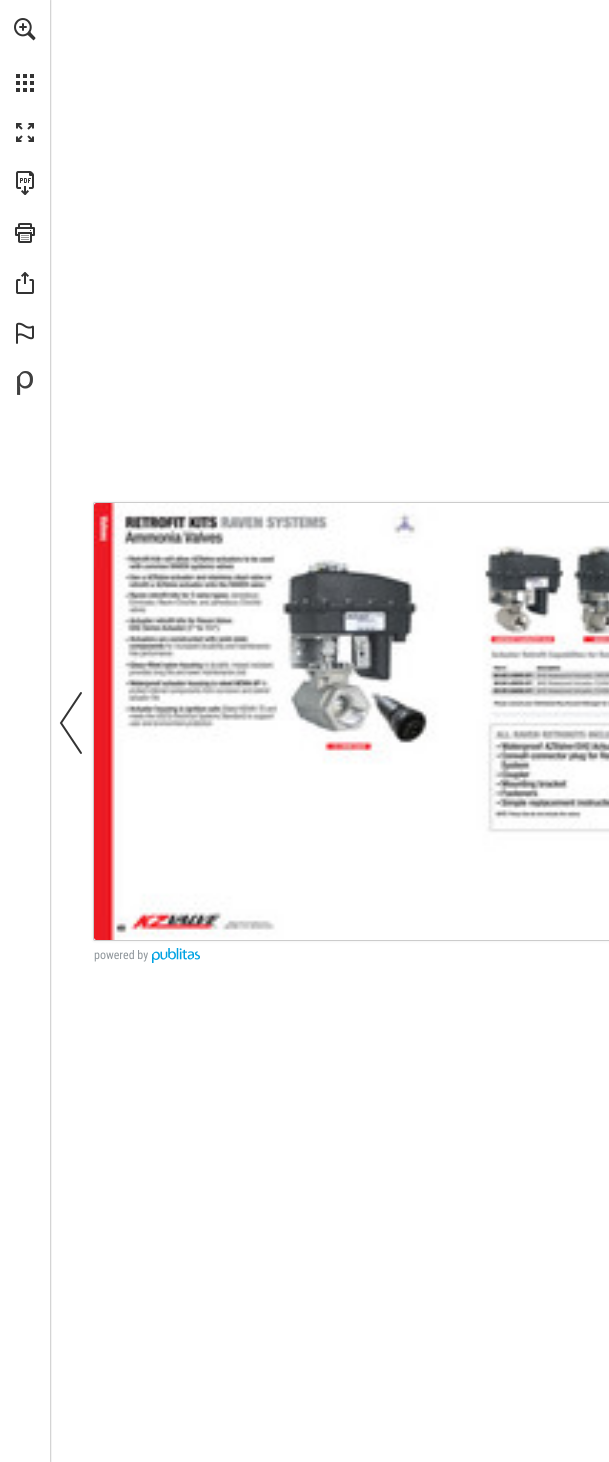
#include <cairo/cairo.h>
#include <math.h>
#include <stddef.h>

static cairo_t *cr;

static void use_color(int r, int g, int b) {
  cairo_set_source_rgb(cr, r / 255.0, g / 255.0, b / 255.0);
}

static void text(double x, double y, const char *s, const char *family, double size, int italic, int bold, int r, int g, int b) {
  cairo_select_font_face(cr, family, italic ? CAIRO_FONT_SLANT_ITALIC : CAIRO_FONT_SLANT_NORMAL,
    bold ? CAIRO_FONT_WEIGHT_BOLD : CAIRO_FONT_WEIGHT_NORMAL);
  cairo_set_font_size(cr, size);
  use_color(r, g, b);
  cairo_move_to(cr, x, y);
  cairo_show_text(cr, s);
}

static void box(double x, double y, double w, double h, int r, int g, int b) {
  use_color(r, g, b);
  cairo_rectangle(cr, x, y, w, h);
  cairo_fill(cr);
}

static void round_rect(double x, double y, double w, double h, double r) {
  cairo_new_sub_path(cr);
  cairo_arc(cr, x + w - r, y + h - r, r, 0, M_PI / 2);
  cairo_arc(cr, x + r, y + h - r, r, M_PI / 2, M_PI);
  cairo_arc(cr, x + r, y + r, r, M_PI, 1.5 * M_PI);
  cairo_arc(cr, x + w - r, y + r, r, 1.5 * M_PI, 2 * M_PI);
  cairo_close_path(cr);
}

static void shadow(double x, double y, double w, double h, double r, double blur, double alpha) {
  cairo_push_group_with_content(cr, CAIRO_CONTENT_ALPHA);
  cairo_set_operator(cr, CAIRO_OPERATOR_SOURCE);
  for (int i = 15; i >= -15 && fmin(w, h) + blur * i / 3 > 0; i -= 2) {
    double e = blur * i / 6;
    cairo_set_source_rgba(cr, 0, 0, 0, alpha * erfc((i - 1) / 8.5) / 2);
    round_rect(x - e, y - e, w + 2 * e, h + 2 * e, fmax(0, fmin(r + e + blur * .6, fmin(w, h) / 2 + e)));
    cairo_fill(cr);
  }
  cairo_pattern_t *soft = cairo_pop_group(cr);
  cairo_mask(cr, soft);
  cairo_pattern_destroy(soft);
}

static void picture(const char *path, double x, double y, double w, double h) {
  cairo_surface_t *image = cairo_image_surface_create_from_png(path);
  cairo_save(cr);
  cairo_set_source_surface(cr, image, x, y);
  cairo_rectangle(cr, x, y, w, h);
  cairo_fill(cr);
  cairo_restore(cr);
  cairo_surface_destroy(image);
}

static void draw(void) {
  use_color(255, 255, 255);
  cairo_paint(cr);
  use_color(0, 0, 0);
  shadow(1, 0, 50, 1462, 0, 0.5, 0.2);
  box(0, 0, 50, 1462, 255, 255, 255);
  picture("img_01.png", 14, 18, 22, 23);
  picture("img_02.png", 16, 74, 18, 18);
  picture("img_03.png", 16, 123, 18, 19);
  picture("img_04.png", 16, 171, 18, 24);
  picture("img_05.png", 15, 223, 20, 20);
  picture("img_06.png", 16, 272, 18, 22);
  picture("img_07.png", 16, 322, 18, 22);
  picture("img_08.png", 17, 371, 16, 24);
  use_color(18, 18, 18);
  shadow(92, 501, 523, 441, 3, 1, 0.05);
  use_color(255, 255, 255);
  round_rect(93.5, 502.5, 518, 438, 1.5);
  cairo_fill_preserve(cr);
  use_color(204, 204, 204);
  cairo_set_line_width(cr, 1);
  cairo_stroke(cr);
  picture("img_09.png", 59, 692, 23, 62);
  picture("img_10.png", 94, 503, 515, 437);
  picture("img_11.png", 152, 948, 48, 15);
  text(94, 959, "powered by", "Roboto Condensed", 12, 0, 0, 143, 150, 155);
}

int main(void) {
  cairo_surface_t *surface = cairo_image_surface_create(CAIRO_FORMAT_RGB24, 609, 1462);
  cr = cairo_create(surface);
  cairo_font_options_t *options = cairo_font_options_create();
  cairo_font_options_set_hint_metrics(options, CAIRO_HINT_METRICS_OFF);
  cairo_font_options_set_hint_style(options, CAIRO_HINT_STYLE_NONE);
  cairo_set_font_options(cr, options);
  cairo_set_miter_limit(cr, 4);
  draw();
  cairo_surface_write_to_png(surface, "out.png");
  cairo_font_options_destroy(options);
  cairo_destroy(cr);
  cairo_surface_destroy(surface);
  return 0;
}
